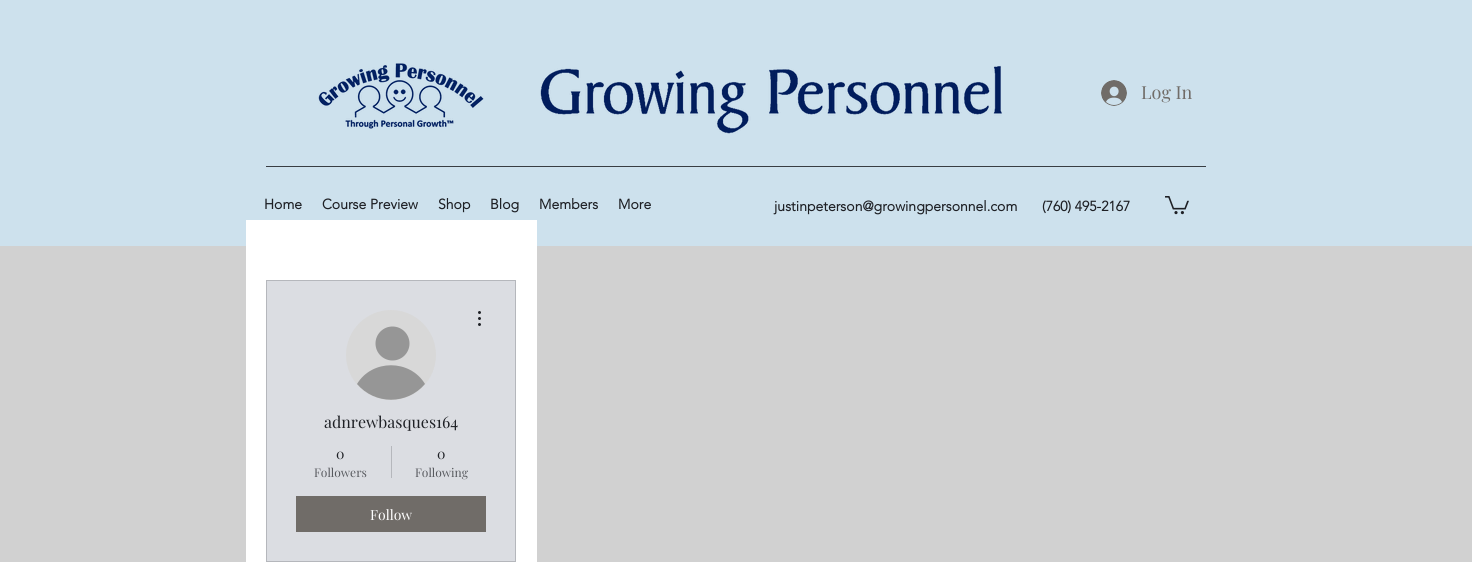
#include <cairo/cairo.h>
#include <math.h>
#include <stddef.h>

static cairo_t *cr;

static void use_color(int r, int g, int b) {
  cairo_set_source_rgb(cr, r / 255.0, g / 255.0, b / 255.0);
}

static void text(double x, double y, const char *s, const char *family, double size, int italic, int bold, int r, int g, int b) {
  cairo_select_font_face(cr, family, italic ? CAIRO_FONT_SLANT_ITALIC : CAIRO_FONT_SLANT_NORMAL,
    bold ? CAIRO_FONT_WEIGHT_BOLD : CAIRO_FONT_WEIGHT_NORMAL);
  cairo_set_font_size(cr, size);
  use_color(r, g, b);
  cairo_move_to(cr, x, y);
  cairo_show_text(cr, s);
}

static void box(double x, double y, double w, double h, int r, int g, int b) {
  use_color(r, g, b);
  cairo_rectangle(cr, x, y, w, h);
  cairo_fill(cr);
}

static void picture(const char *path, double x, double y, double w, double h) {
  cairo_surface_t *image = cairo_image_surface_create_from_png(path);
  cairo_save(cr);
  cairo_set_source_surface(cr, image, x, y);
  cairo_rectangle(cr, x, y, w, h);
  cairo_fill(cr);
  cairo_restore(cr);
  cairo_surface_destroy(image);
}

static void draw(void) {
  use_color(209, 209, 209);
  cairo_paint(cr);
  box(0, 0, 1472, 246, 205, 225, 237);
  picture("img_01.png", 318, 63, 166, 66);
  picture("img_02.png", 540, 65, 462, 69);
  picture("img_03.png", 1101, 80, 26, 26);
  box(266, 166, 940, 1, 56, 61, 67);
  picture("img_04.png", 1165, 196, 24, 19);
  box(246, 220, 291, 342, 255, 255, 255);
  use_color(219, 221, 226);
  cairo_rectangle(cr, 266.5, 280.5, 249, 281);
  cairo_fill_preserve(cr);
  use_color(181, 183, 188);
  cairo_set_line_width(cr, 1);
  cairo_stroke(cr);
  use_color(216, 216, 216);
  cairo_arc(cr, 391, 355, 45, 0, 2 * M_PI);
  cairo_fill(cr);
  use_color(150, 150, 150);
  cairo_arc(cr, 392.5, 343.5, 17, 0, 2 * M_PI);
  cairo_fill(cr);
  cairo_new_path(cr);
  cairo_move_to(cr, 425, 384);
  cairo_curve_to(cr, 407, 405, 375, 405, 357, 384);
  cairo_curve_to(cr, 372, 359, 410, 359, 425, 384);
  cairo_close_path(cr);
  cairo_fill(cr);
  picture("img_05.png", 478, 311, 3, 15);
  box(391, 446, 1, 32, 181, 183, 188);
  box(296, 496, 190, 36, 112, 108, 104);
  text(1141, 99, "Log In", "Playfair Display", 18, 0, 0, 112, 108, 104);
  text(264, 209, "Home", "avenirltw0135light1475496", 14, 0, 1, 30, 32, 37);
  text(322, 209, "Course Preview", "avenirltw0135light1475496", 14, 0, 1, 30, 32, 37);
  text(438, 209, "Shop", "avenirltw0135light1475496", 14, 0, 1, 30, 32, 37);
  text(490, 209, "Blog", "avenirltw0135light1475496", 14, 0, 1, 30, 32, 37);
  text(539, 209, "Members", "avenirltw0135light1475496", 14, 0, 1, 30, 32, 37);
  text(618, 209, "More", "avenirltw0135light1475496", 14, 0, 1, 30, 32, 37);
  text(774, 211, "justinpeterson@growingpersonnel.com", "avenirltw0135light1475496", 14, 0, 1, 30, 32, 37);
  text(1042, 211, "(760) 495-2167", "avenirltw0135light1475496", 14, 0, 1, 30, 32, 37);
  text(324, 428, "adnrewbasques164", "Playfair Display", 16, 0, 0, 30, 32, 37);
  text(336, 459, "0", "Playfair Display", 14, 0, 0, 30, 32, 37);
  text(314, 477, "Followers", "Playfair Display", 12, 0, 0, 87, 89, 94);
  text(437, 459, "0", "Playfair Display", 14, 0, 0, 30, 32, 37);
  text(415, 477, "Following", "Playfair Display", 12, 0, 0, 87, 89, 94);
  text(370, 520, "Follow", "Playfair Display", 14, 0, 0, 255, 255, 255);
}

int main(void) {
  cairo_surface_t *surface = cairo_image_surface_create(CAIRO_FORMAT_RGB24, 1472, 562);
  cr = cairo_create(surface);
  cairo_font_options_t *options = cairo_font_options_create();
  cairo_font_options_set_hint_metrics(options, CAIRO_HINT_METRICS_OFF);
  cairo_font_options_set_hint_style(options, CAIRO_HINT_STYLE_NONE);
  cairo_set_font_options(cr, options);
  cairo_set_miter_limit(cr, 4);
  draw();
  cairo_surface_write_to_png(surface, "out.png");
  cairo_font_options_destroy(options);
  cairo_destroy(cr);
  cairo_surface_destroy(surface);
  return 0;
}
